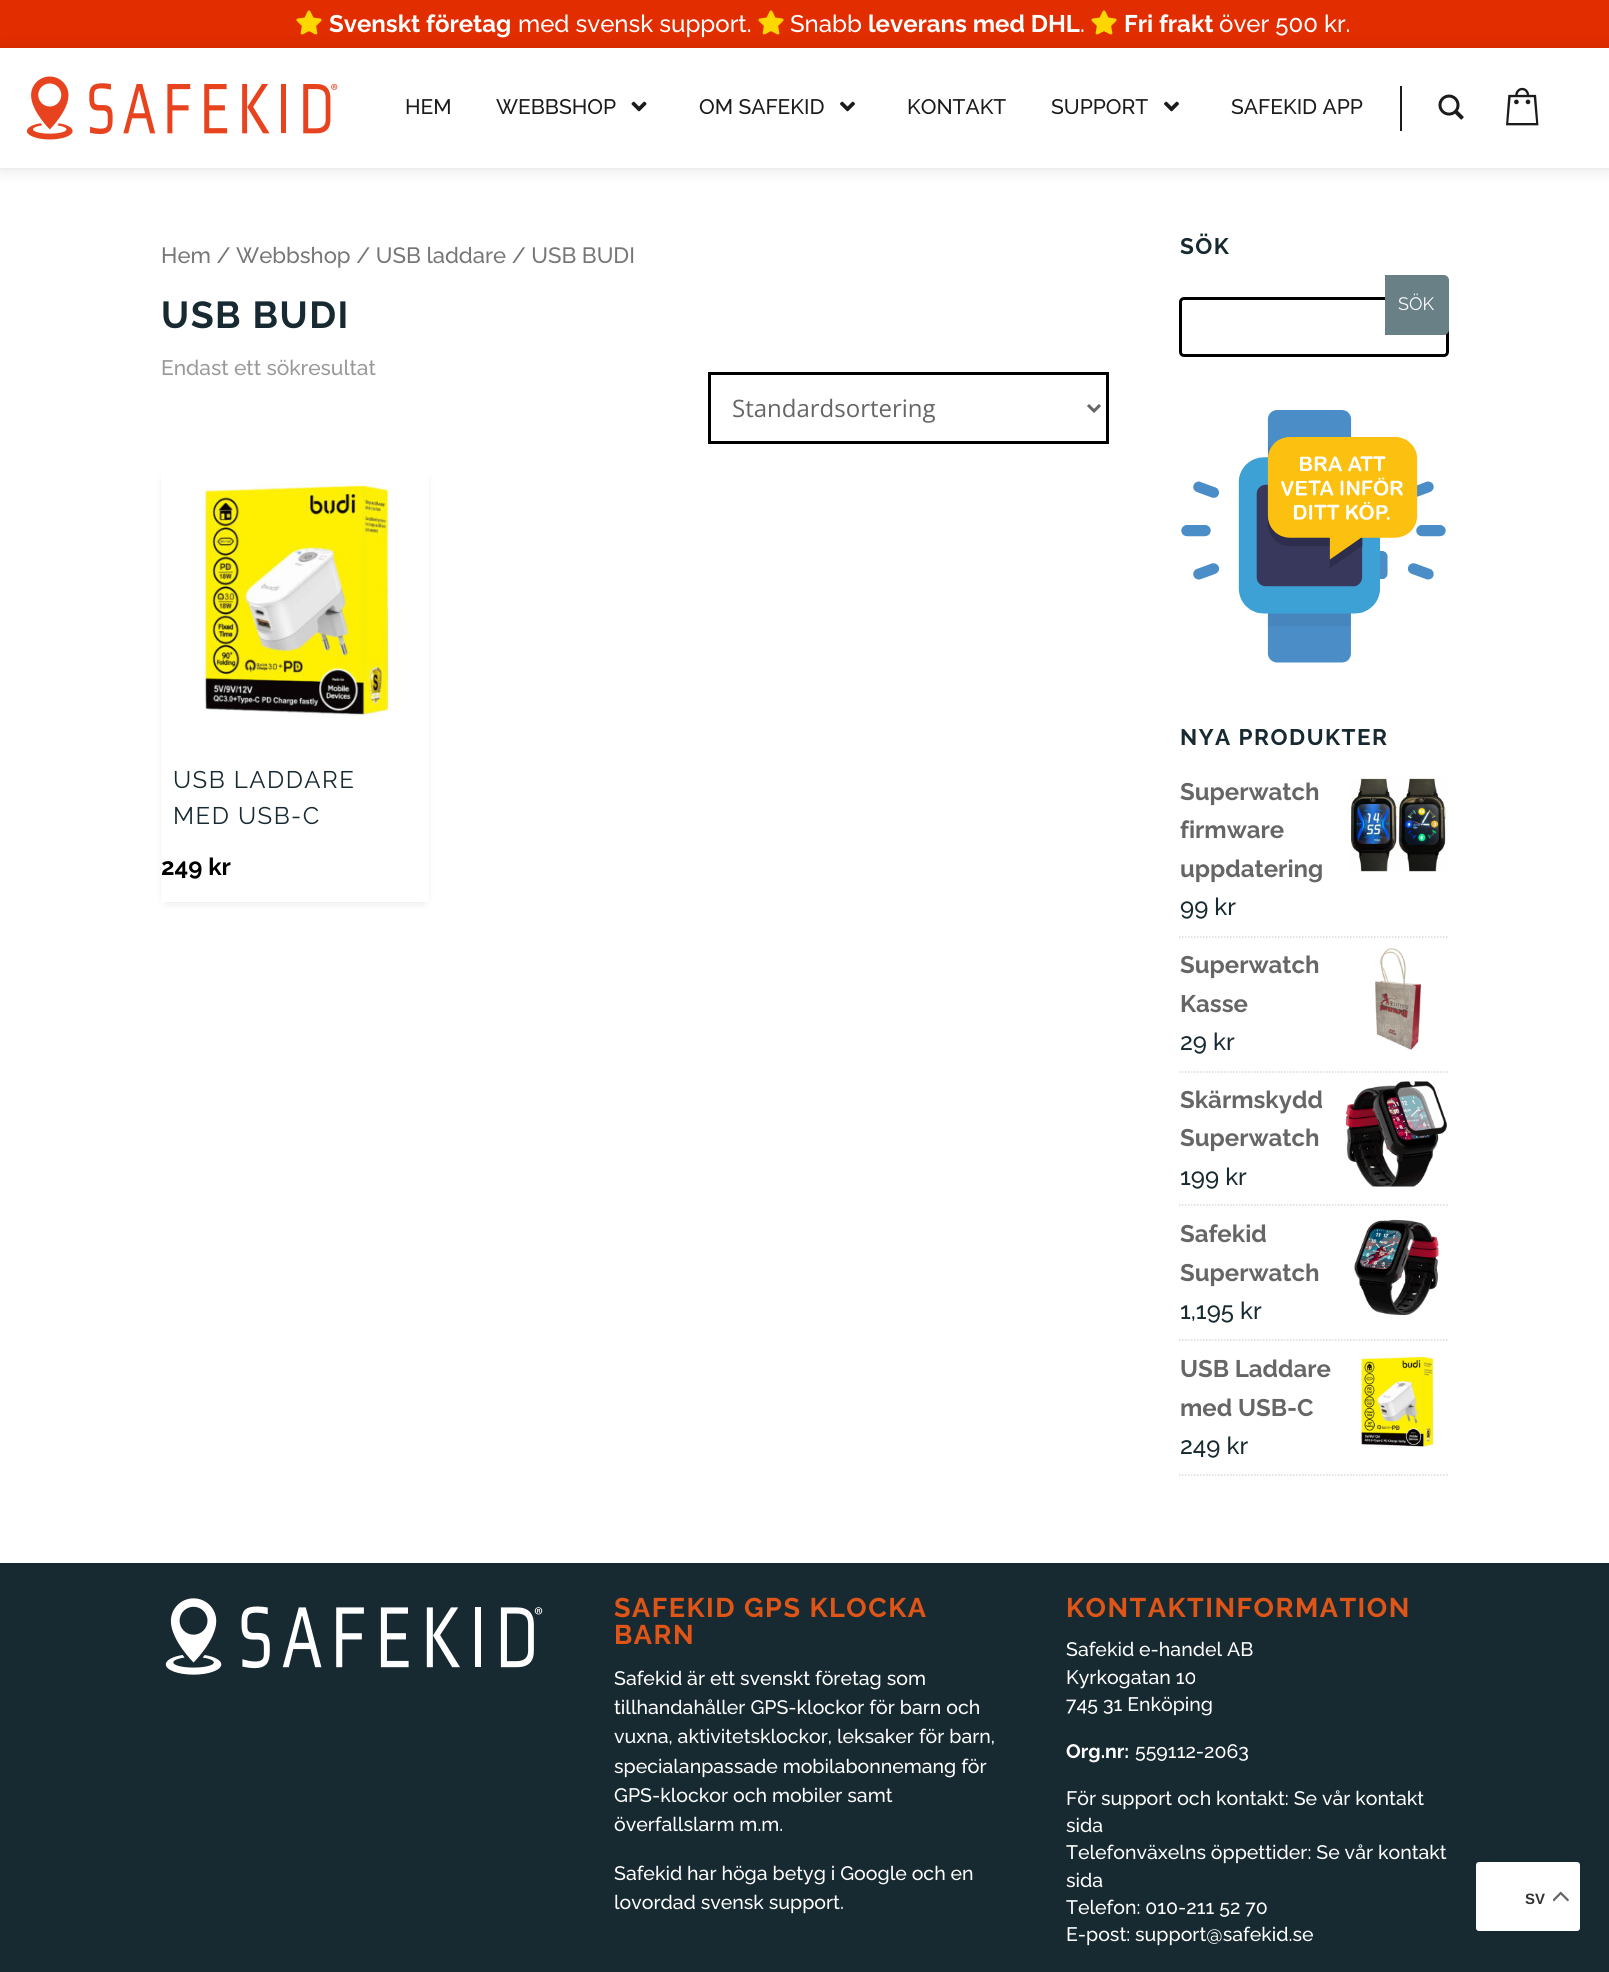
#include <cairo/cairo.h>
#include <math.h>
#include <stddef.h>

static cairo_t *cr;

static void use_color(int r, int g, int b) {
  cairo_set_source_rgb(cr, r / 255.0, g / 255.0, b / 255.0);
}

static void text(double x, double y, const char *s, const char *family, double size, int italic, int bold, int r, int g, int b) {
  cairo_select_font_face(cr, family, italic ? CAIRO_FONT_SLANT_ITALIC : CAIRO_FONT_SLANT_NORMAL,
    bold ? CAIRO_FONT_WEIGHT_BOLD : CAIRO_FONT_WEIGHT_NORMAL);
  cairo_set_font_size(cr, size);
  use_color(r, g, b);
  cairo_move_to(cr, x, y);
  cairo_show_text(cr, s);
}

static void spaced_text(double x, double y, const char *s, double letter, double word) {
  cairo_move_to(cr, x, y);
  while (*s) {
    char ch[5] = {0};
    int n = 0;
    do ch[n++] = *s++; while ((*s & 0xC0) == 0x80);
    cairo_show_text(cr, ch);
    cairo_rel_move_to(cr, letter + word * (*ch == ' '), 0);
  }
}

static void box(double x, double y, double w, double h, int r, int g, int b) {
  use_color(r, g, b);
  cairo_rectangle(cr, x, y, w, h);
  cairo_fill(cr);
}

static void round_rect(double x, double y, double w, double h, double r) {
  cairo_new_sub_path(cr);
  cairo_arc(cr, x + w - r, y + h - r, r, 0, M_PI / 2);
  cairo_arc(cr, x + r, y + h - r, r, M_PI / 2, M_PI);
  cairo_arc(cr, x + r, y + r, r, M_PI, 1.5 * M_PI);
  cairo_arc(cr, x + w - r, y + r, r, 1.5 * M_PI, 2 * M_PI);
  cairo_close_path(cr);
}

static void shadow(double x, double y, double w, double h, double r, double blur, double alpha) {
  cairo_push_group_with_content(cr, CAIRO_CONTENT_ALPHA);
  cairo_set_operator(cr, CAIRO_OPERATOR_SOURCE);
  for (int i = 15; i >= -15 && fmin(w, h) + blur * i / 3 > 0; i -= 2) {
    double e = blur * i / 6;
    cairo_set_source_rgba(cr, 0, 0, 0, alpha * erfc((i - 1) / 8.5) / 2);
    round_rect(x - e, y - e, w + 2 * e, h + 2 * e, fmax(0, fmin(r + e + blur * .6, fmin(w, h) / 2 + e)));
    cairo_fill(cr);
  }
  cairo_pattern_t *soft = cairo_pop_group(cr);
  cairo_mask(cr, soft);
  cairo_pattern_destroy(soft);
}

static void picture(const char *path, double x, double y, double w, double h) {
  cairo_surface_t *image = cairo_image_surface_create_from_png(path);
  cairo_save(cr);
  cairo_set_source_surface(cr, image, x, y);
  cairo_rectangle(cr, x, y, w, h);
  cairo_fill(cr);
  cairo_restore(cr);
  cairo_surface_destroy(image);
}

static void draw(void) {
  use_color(255, 255, 255);
  cairo_paint(cr);
  box(0, 0, 1609, 48, 226, 45, 0);
  picture("img_01.png", 296, 10, 26, 25);
  picture("img_01.png", 758, 10, 26, 25);
  picture("img_01.png", 1091, 10, 26, 25);
  cairo_save(cr);
  cairo_set_fill_rule(cr, CAIRO_FILL_RULE_EVEN_ODD);
  cairo_new_path(cr);
  cairo_move_to(cr, 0, 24);
  cairo_line_to(cr, 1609, 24);
  cairo_line_to(cr, 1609, 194);
  cairo_line_to(cr, 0, 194);
  cairo_close_path(cr);
  cairo_move_to(cr, 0, 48);
  cairo_line_to(cr, 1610, 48);
  cairo_line_to(cr, 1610, 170);
  cairo_line_to(cr, 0, 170);
  cairo_close_path(cr);
  cairo_clip(cr);
  use_color(0, 0, 0);
  shadow(0, 48, 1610, 122, 0, 7.5, 0.1);
  cairo_restore(cr);
  cairo_set_source_rgba(cr, 0, 0, 0, 0.07);
  cairo_rectangle(cr, 0, 168, 1609, 2);
  cairo_fill(cr);
  picture("img_02.png", 26, 76, 312, 64);
  picture("img_03.png", 631, 101, 16, 11);
  picture("img_04.png", 840, 101, 15, 11);
  picture("img_04.png", 1164, 101, 15, 11);
  box(1400, 86, 2, 45, 27, 27, 27);
  picture("img_05.png", 1438, 94, 26, 26);
  picture("img_06.png", 1506, 87, 33, 39);
  cairo_rectangle(cr, 709.5, 373.5, 398, 69);
  use_color(0, 0, 0);
  cairo_set_line_width(cr, 3);
  cairo_stroke(cr);
  cairo_new_path(cr);
  cairo_move_to(cr, 1088, 405);
  cairo_line_to(cr, 1094, 411);
  cairo_line_to(cr, 1100, 405);
  use_color(102, 102, 102);
  cairo_stroke(cr);
  use_color(0, 0, 0);
  shadow(167, 479, 256, 421, 0, 6, 0.15);
  box(161, 470, 268, 432, 255, 255, 255);
  picture("img_07.png", 203, 482, 187, 237);
  round_rect(1180.5, 298.5, 267, 57, 3.5);
  use_color(0, 0, 0);
  cairo_stroke(cr);
  use_color(105, 128, 135);
  cairo_new_path(cr);
  cairo_move_to(cr, 1386, 276);
  cairo_line_to(cr, 1444, 276);
  cairo_curve_to(cr, 1446, 276, 1448, 278, 1448, 280);
  cairo_line_to(cr, 1448, 330);
  cairo_curve_to(cr, 1448, 332, 1446, 334, 1444, 334);
  cairo_line_to(cr, 1386, 334);
  cairo_close_path(cr);
  cairo_fill_preserve(cr);
  cairo_set_line_width(cr, 2);
  cairo_stroke(cr);
  picture("img_08.png", 1181, 410, 265, 253);
  cairo_new_path(cr);
  cairo_move_to(cr, 1179, 937);
  cairo_line_to(cr, 1449, 937);
  use_color(217, 217, 217);
  cairo_set_line_width(cr, 1.5);
  cairo_set_dash(cr, (double[]){1.5, 1.5}, 2, 0);
  cairo_stroke(cr);
  picture("img_09.png", 1350, 778, 98, 94);
  cairo_new_path(cr);
  cairo_move_to(cr, 1179, 1072);
  cairo_line_to(cr, 1449, 1072);
  cairo_stroke(cr);
  picture("img_10.png", 1375, 948, 47, 102);
  cairo_new_path(cr);
  cairo_move_to(cr, 1179, 1205);
  cairo_line_to(cr, 1449, 1205);
  cairo_stroke(cr);
  picture("img_11.png", 1345, 1081, 102, 106);
  cairo_new_path(cr);
  cairo_move_to(cr, 1179, 1340);
  cairo_line_to(cr, 1449, 1340);
  cairo_stroke(cr);
  picture("img_12.png", 1354, 1219, 85, 97);
  cairo_new_path(cr);
  cairo_move_to(cr, 1179, 1475);
  cairo_line_to(cr, 1449, 1475);
  cairo_stroke(cr);
  picture("img_13.png", 1361, 1356, 73, 92);
  box(0, 1563, 1609, 409, 24, 42, 49);
  picture("img_14.png", 165, 1598, 378, 77);
  use_color(255, 255, 255);
  round_rect(1476, 1862, 104, 69, 3);
  cairo_fill(cr);
  picture("img_15.png", 1553, 1891, 16, 11);
  text(329, 32, "Svenskt företag", "Raleway", 24, 0, 1, 255, 255, 255);
  text(518, 32, "med svensk support.", "Raleway Medium", 24, 0, 0, 255, 255, 255);
  text(790, 32, "Snabb", "Raleway Medium", 24, 0, 0, 255, 255, 255);
  text(868, 32, "leverans med DHL", "Raleway", 24, 0, 1, 255, 255, 255);
  text(1080, 32, ".", "Raleway Medium", 24, 0, 0, 255, 255, 255);
  text(1124, 32, "Fri frakt", "Raleway", 24, 0, 1, 255, 255, 255);
  text(1219, 32, "över 500 kr.", "Raleway Medium", 24, 0, 0, 255, 255, 255);
  text(405, 114, "HEM", "Raleway Medium", 21, 0, 0, 27, 27, 27);
  text(496, 114, "WEBBSHOP", "Raleway Medium", 21, 0, 0, 27, 27, 27);
  text(699, 114, "OM SAFEKID", "Raleway Medium", 21, 0, 0, 27, 27, 27);
  text(907, 114, "KONTAKT", "Raleway Medium", 21, 0, 0, 27, 27, 27);
  text(1051, 114, "SUPPORT", "Raleway Medium", 21, 0, 0, 27, 27, 27);
  text(1231, 114, "SAFEKID APP", "Raleway Medium", 21, 0, 0, 27, 27, 27);
  text(161, 263, "Hem / Webbshop / USB laddare / USB BUDI", "Raleway Medium", 22.1, 0, 0, 118, 118, 118);
  cairo_select_font_face(cr, "Raleway", CAIRO_FONT_SLANT_NORMAL, CAIRO_FONT_WEIGHT_BOLD);
  cairo_set_font_size(cr, 37.5);
  use_color(24, 42, 49);
  spaced_text(161, 328, "USB BUDI", 1.5, 0);
  text(161, 375, "Endast ett sökresultat", "Raleway Medium", 21, 0, 0, 153, 153, 153);
  text(732, 417, "Standardsortering", "Open Sans", 24, 0, 0, 102, 102, 102);
  cairo_select_font_face(cr, "Raleway", CAIRO_FONT_SLANT_NORMAL, CAIRO_FONT_WEIGHT_NORMAL);
  use_color(24, 42, 49);
  spaced_text(173, 788, "USB LADDARE", 1.5, 0);
  spaced_text(173, 824, "MED USB-C", 1.5, 0);
  text(161, 875, "249 kr", "Raleway", 24, 0, 1, 0, 0, 0);
  cairo_set_font_size(cr, 22.5);
  use_color(24, 42, 49);
  spaced_text(1180, 254, "SÖK", 1.5, 0);
  text(1398, 310, "SÖK", "Raleway", 18, 0, 0, 255, 255, 255);
  cairo_select_font_face(cr, "Raleway", CAIRO_FONT_SLANT_NORMAL, CAIRO_FONT_WEIGHT_BOLD);
  cairo_set_font_size(cr, 22.5);
  use_color(24, 42, 49);
  spaced_text(1180, 745, "NYA PRODUKTER", 1.5, 0);
  text(1180, 800, "Superwatch", "Raleway", 24, 0, 1, 102, 102, 102);
  text(1180, 838, "firmware", "Raleway", 24, 0, 1, 102, 102, 102);
  text(1180, 877, "uppdatering", "Raleway", 24, 0, 1, 102, 102, 102);
  text(1180, 915, "99 kr", "Raleway Medium", 24, 0, 0, 24, 42, 49);
  text(1180, 973, "Superwatch", "Raleway", 24, 0, 1, 102, 102, 102);
  text(1180, 1012, "Kasse", "Raleway", 24, 0, 1, 102, 102, 102);
  text(1180, 1050, "29 kr", "Raleway Medium", 24, 0, 0, 24, 42, 49);
  text(1180, 1108, "Skärmskydd", "Raleway", 24, 0, 1, 102, 102, 102);
  text(1180, 1146, "Superwatch", "Raleway", 24, 0, 1, 102, 102, 102);
  text(1180, 1185, "199 kr", "Raleway Medium", 24, 0, 0, 24, 42, 49);
  text(1180, 1242, "Safekid", "Raleway", 24, 0, 1, 102, 102, 102);
  text(1180, 1281, "Superwatch", "Raleway", 24, 0, 1, 102, 102, 102);
  text(1180, 1319, "1,195 kr", "Raleway Medium", 24, 0, 0, 24, 42, 49);
  text(1180, 1377, "USB Laddare", "Raleway", 24, 0, 1, 102, 102, 102);
  text(1180, 1416, "med USB-C", "Raleway", 24, 0, 1, 102, 102, 102);
  text(1180, 1454, "249 kr", "Raleway Medium", 24, 0, 0, 24, 42, 49);
  cairo_select_font_face(cr, "Raleway", CAIRO_FONT_SLANT_NORMAL, CAIRO_FONT_WEIGHT_BOLD);
  cairo_set_font_size(cr, 27);
  use_color(223, 84, 23);
  spaced_text(614, 1617, "SAFEKID GPS KLOCKA", 1.5, 0);
  spaced_text(614, 1644, "BARN", 1.5, 0);
  text(614, 1685, "Safekid är ett svenskt företag som", "Raleway Medium", 19.5, 0, 0, 255, 255, 255);
  text(614, 1714, "tillhandahåller GPS-klockor för barn och", "Raleway Medium", 19.5, 0, 0, 255, 255, 255);
  text(614, 1743, "vuxna, aktivitetsklockor, leksaker för barn,", "Raleway Medium", 19.5, 0, 0, 255, 255, 255);
  text(614, 1773, "specialanpassade mobilabonnemang för", "Raleway Medium", 19.5, 0, 0, 255, 255, 255);
  text(614, 1802, "GPS-klockor och mobiler samt", "Raleway Medium", 19.5, 0, 0, 255, 255, 255);
  text(614, 1831, "överfallslarm m.m.", "Raleway Medium", 19.5, 0, 0, 255, 255, 255);
  text(614, 1880, "Safekid har höga betyg i Google och en", "Raleway Medium", 19.5, 0, 0, 255, 255, 255);
  text(614, 1909, "lovordad svensk support.", "Raleway Medium", 19.5, 0, 0, 255, 255, 255);
  cairo_select_font_face(cr, "Raleway", CAIRO_FONT_SLANT_NORMAL, CAIRO_FONT_WEIGHT_BOLD);
  cairo_set_font_size(cr, 27);
  use_color(223, 84, 23);
  spaced_text(1066, 1617, "KONTAKTINFORMATION", 1.5, 0);
  text(1066, 1656, "Safekid e-handel AB", "Raleway Medium", 19.5, 0, 0, 255, 255, 255);
  text(1066, 1684, "Kyrkogatan 10", "Raleway Medium", 19.5, 0, 0, 255, 255, 255);
  text(1066, 1711, "745 31 Enköping", "Raleway Medium", 19.5, 0, 0, 255, 255, 255);
  text(1066, 1758, "Org.nr:", "Raleway", 19.5, 0, 1, 255, 255, 255);
  text(1135, 1758, "559112-2063", "Raleway Medium", 19.5, 0, 0, 255, 255, 255);
  text(1066, 1805, "För support och kontakt: Se vår kontakt", "Raleway Medium", 19.5, 0, 0, 255, 255, 255);
  text(1066, 1832, "sida", "Raleway Medium", 19.5, 0, 0, 255, 255, 255);
  text(1066, 1859, "Telefonväxelns öppettider: Se vår kontakt", "Raleway Medium", 19.5, 0, 0, 255, 255, 255);
  text(1066, 1887, "sida", "Raleway Medium", 19.5, 0, 0, 255, 255, 255);
  text(1066, 1914, "Telefon: 010-211 52 70", "Raleway Medium", 19.5, 0, 0, 255, 255, 255);
  text(1066, 1941, "E-post: support@safekid.se", "Raleway Medium", 19.5, 0, 0, 255, 255, 255);
  text(1525, 1904, "SV", "Liberation Sans", 15, 0, 1, 51, 51, 51);
}

int main(void) {
  cairo_surface_t *surface = cairo_image_surface_create(CAIRO_FORMAT_RGB24, 1609, 1972);
  cr = cairo_create(surface);
  cairo_font_options_t *options = cairo_font_options_create();
  cairo_font_options_set_hint_metrics(options, CAIRO_HINT_METRICS_OFF);
  cairo_font_options_set_hint_style(options, CAIRO_HINT_STYLE_NONE);
  cairo_set_font_options(cr, options);
  cairo_set_miter_limit(cr, 4);
  draw();
  cairo_surface_write_to_png(surface, "out.png");
  cairo_font_options_destroy(options);
  cairo_destroy(cr);
  cairo_surface_destroy(surface);
  return 0;
}
